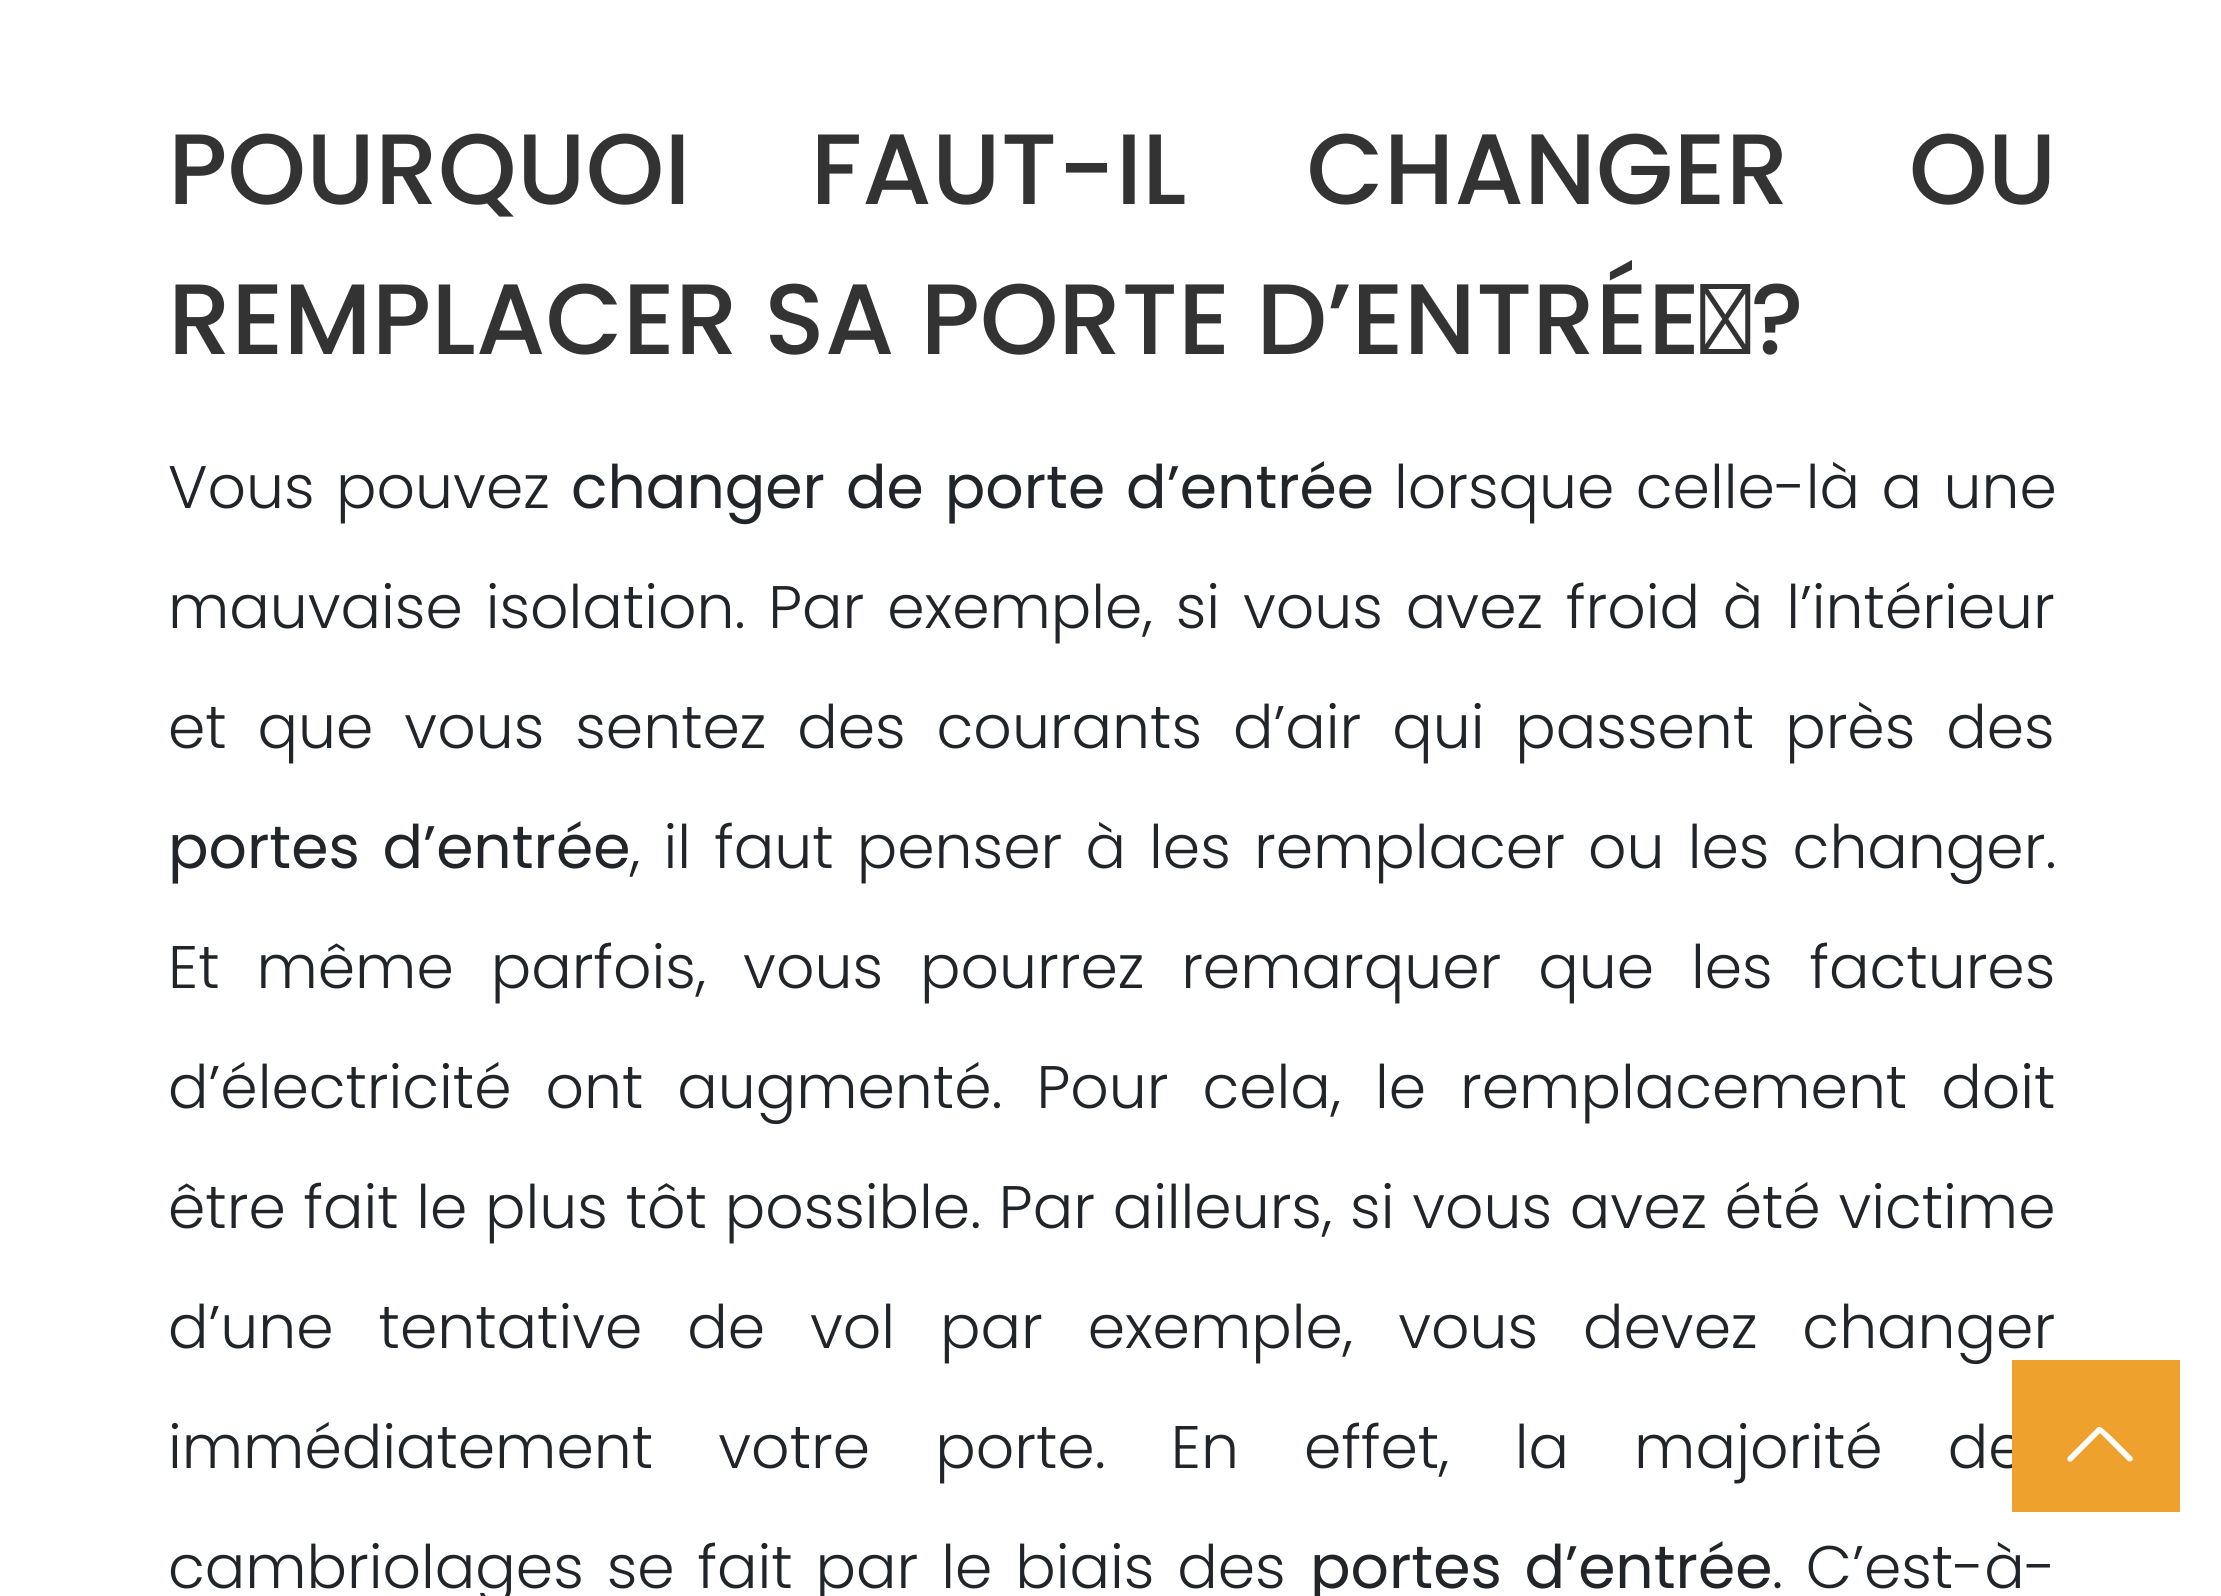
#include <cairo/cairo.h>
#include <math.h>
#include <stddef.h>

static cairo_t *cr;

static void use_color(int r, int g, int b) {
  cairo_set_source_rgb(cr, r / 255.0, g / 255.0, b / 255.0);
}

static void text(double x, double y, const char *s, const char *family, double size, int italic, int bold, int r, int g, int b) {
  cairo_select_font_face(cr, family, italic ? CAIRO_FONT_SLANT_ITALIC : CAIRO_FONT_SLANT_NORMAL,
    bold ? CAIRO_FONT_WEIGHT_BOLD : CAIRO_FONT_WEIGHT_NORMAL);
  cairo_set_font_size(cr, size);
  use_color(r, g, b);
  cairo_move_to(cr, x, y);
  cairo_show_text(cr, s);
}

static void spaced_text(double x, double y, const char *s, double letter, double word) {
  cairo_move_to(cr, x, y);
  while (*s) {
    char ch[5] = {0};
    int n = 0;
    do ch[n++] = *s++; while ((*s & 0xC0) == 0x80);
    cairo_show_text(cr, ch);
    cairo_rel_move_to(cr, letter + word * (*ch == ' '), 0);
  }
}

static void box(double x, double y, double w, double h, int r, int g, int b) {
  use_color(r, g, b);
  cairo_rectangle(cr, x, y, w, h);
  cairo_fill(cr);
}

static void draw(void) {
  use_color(255, 255, 255);
  cairo_paint(cr);
  cairo_select_font_face(cr, "Poppins Medium", CAIRO_FONT_SLANT_NORMAL, CAIRO_FONT_WEIGHT_NORMAL);
  cairo_set_font_size(cr, 100);
  use_color(51, 51, 51);
  spaced_text(168, 204, "POURQUOI FAUT-IL CHANGER OU", 0, 94);
  text(168, 354, "REMPLACER SA PORTE D’ENTRÉE ?", "Poppins Medium", 100, 0, 0, 51, 51, 51);
  cairo_select_font_face(cr, "Poppins Light", CAIRO_FONT_SLANT_NORMAL, CAIRO_FONT_WEIGHT_NORMAL);
  cairo_set_font_size(cr, 60);
  use_color(33, 37, 41);
  spaced_text(168, 508, "Vous pouvez", 0, 5);
  cairo_select_font_face(cr, "Poppins", CAIRO_FONT_SLANT_NORMAL, CAIRO_FONT_WEIGHT_NORMAL);
  spaced_text(571, 508, "changer de porte d’entrée", 0, 5);
  cairo_select_font_face(cr, "Poppins Light", CAIRO_FONT_SLANT_NORMAL, CAIRO_FONT_WEIGHT_NORMAL);
  spaced_text(1394, 508, "lorsque celle-là a une", 0, 5);
  spaced_text(168, 628, "mauvaise isolation. Par exemple, si vous avez froid à l’intérieur", 0, 6.5);
  spaced_text(168, 748, "et que vous sentez des courants d’air qui passent près des", 0, 14.5);
  cairo_select_font_face(cr, "Poppins", CAIRO_FONT_SLANT_NORMAL, CAIRO_FONT_WEIGHT_NORMAL);
  spaced_text(168, 868, "portes d’entrée", 0, 6.75);
  cairo_select_font_face(cr, "Poppins Light", CAIRO_FONT_SLANT_NORMAL, CAIRO_FONT_WEIGHT_NORMAL);
  spaced_text(630, 868, ", il faut penser à les remplacer ou les changer.", 0, 6.75);
  spaced_text(168, 988, "Et même parfois, vous pourrez remarquer que les factures", 0, 20.5);
  spaced_text(168, 1108, "d’électricité ont augmenté. Pour cela, le remplacement doit", 0, 17.5);
  spaced_text(168, 1228, "être fait le plus tôt possible. Par ailleurs, si vous avez été victime", 0, 1.3);
  spaced_text(168, 1348, "d’une tentative de vol par exemple, vous devez changer", 0, 28.5);
  spaced_text(168, 1468, "immédiatement votre porte. En effet, la majorité de", 0, 48.75);
  spaced_text(168, 1588, "cambriolages se fait par le biais des", 0, 6.5);
  cairo_select_font_face(cr, "Poppins", CAIRO_FONT_SLANT_NORMAL, CAIRO_FONT_WEIGHT_NORMAL);
  spaced_text(1310, 1588, "portes d’entrée", 0, 6.75);
  cairo_select_font_face(cr, "Poppins Light", CAIRO_FONT_SLANT_NORMAL, CAIRO_FONT_WEIGHT_NORMAL);
  spaced_text(1772, 1588, ". C’est-à-", 0, 6.5);
  box(2012, 1360, 168, 152, 238, 161, 45);
  use_color(255, 255, 255);
  cairo_set_fill_rule(cr, CAIRO_FILL_RULE_EVEN_ODD);
  cairo_new_path(cr);
  cairo_move_to(cr, 2098, 1427);
  cairo_line_to(cr, 2100, 1427);
  cairo_curve_to(cr, 2103, 1427, 2128, 1453, 2132, 1457);
  cairo_line_to(cr, 2133, 1459);
  cairo_curve_to(cr, 2133, 1461, 2130, 1462, 2128, 1461);
  cairo_line_to(cr, 2100, 1433);
  cairo_line_to(cr, 2072, 1461);
  cairo_curve_to(cr, 2071, 1462, 2069, 1462, 2068, 1461);
  cairo_curve_to(cr, 2067, 1460, 2067, 1458, 2068, 1457);
  cairo_close_path(cr);
  cairo_fill(cr);
}

int main(void) {
  cairo_surface_t *surface = cairo_image_surface_create(CAIRO_FORMAT_RGB24, 2221, 1596);
  cr = cairo_create(surface);
  cairo_font_options_t *options = cairo_font_options_create();
  cairo_font_options_set_hint_metrics(options, CAIRO_HINT_METRICS_OFF);
  cairo_font_options_set_hint_style(options, CAIRO_HINT_STYLE_NONE);
  cairo_set_font_options(cr, options);
  cairo_set_miter_limit(cr, 4);
  draw();
  cairo_surface_write_to_png(surface, "out.png");
  cairo_font_options_destroy(options);
  cairo_destroy(cr);
  cairo_surface_destroy(surface);
  return 0;
}
